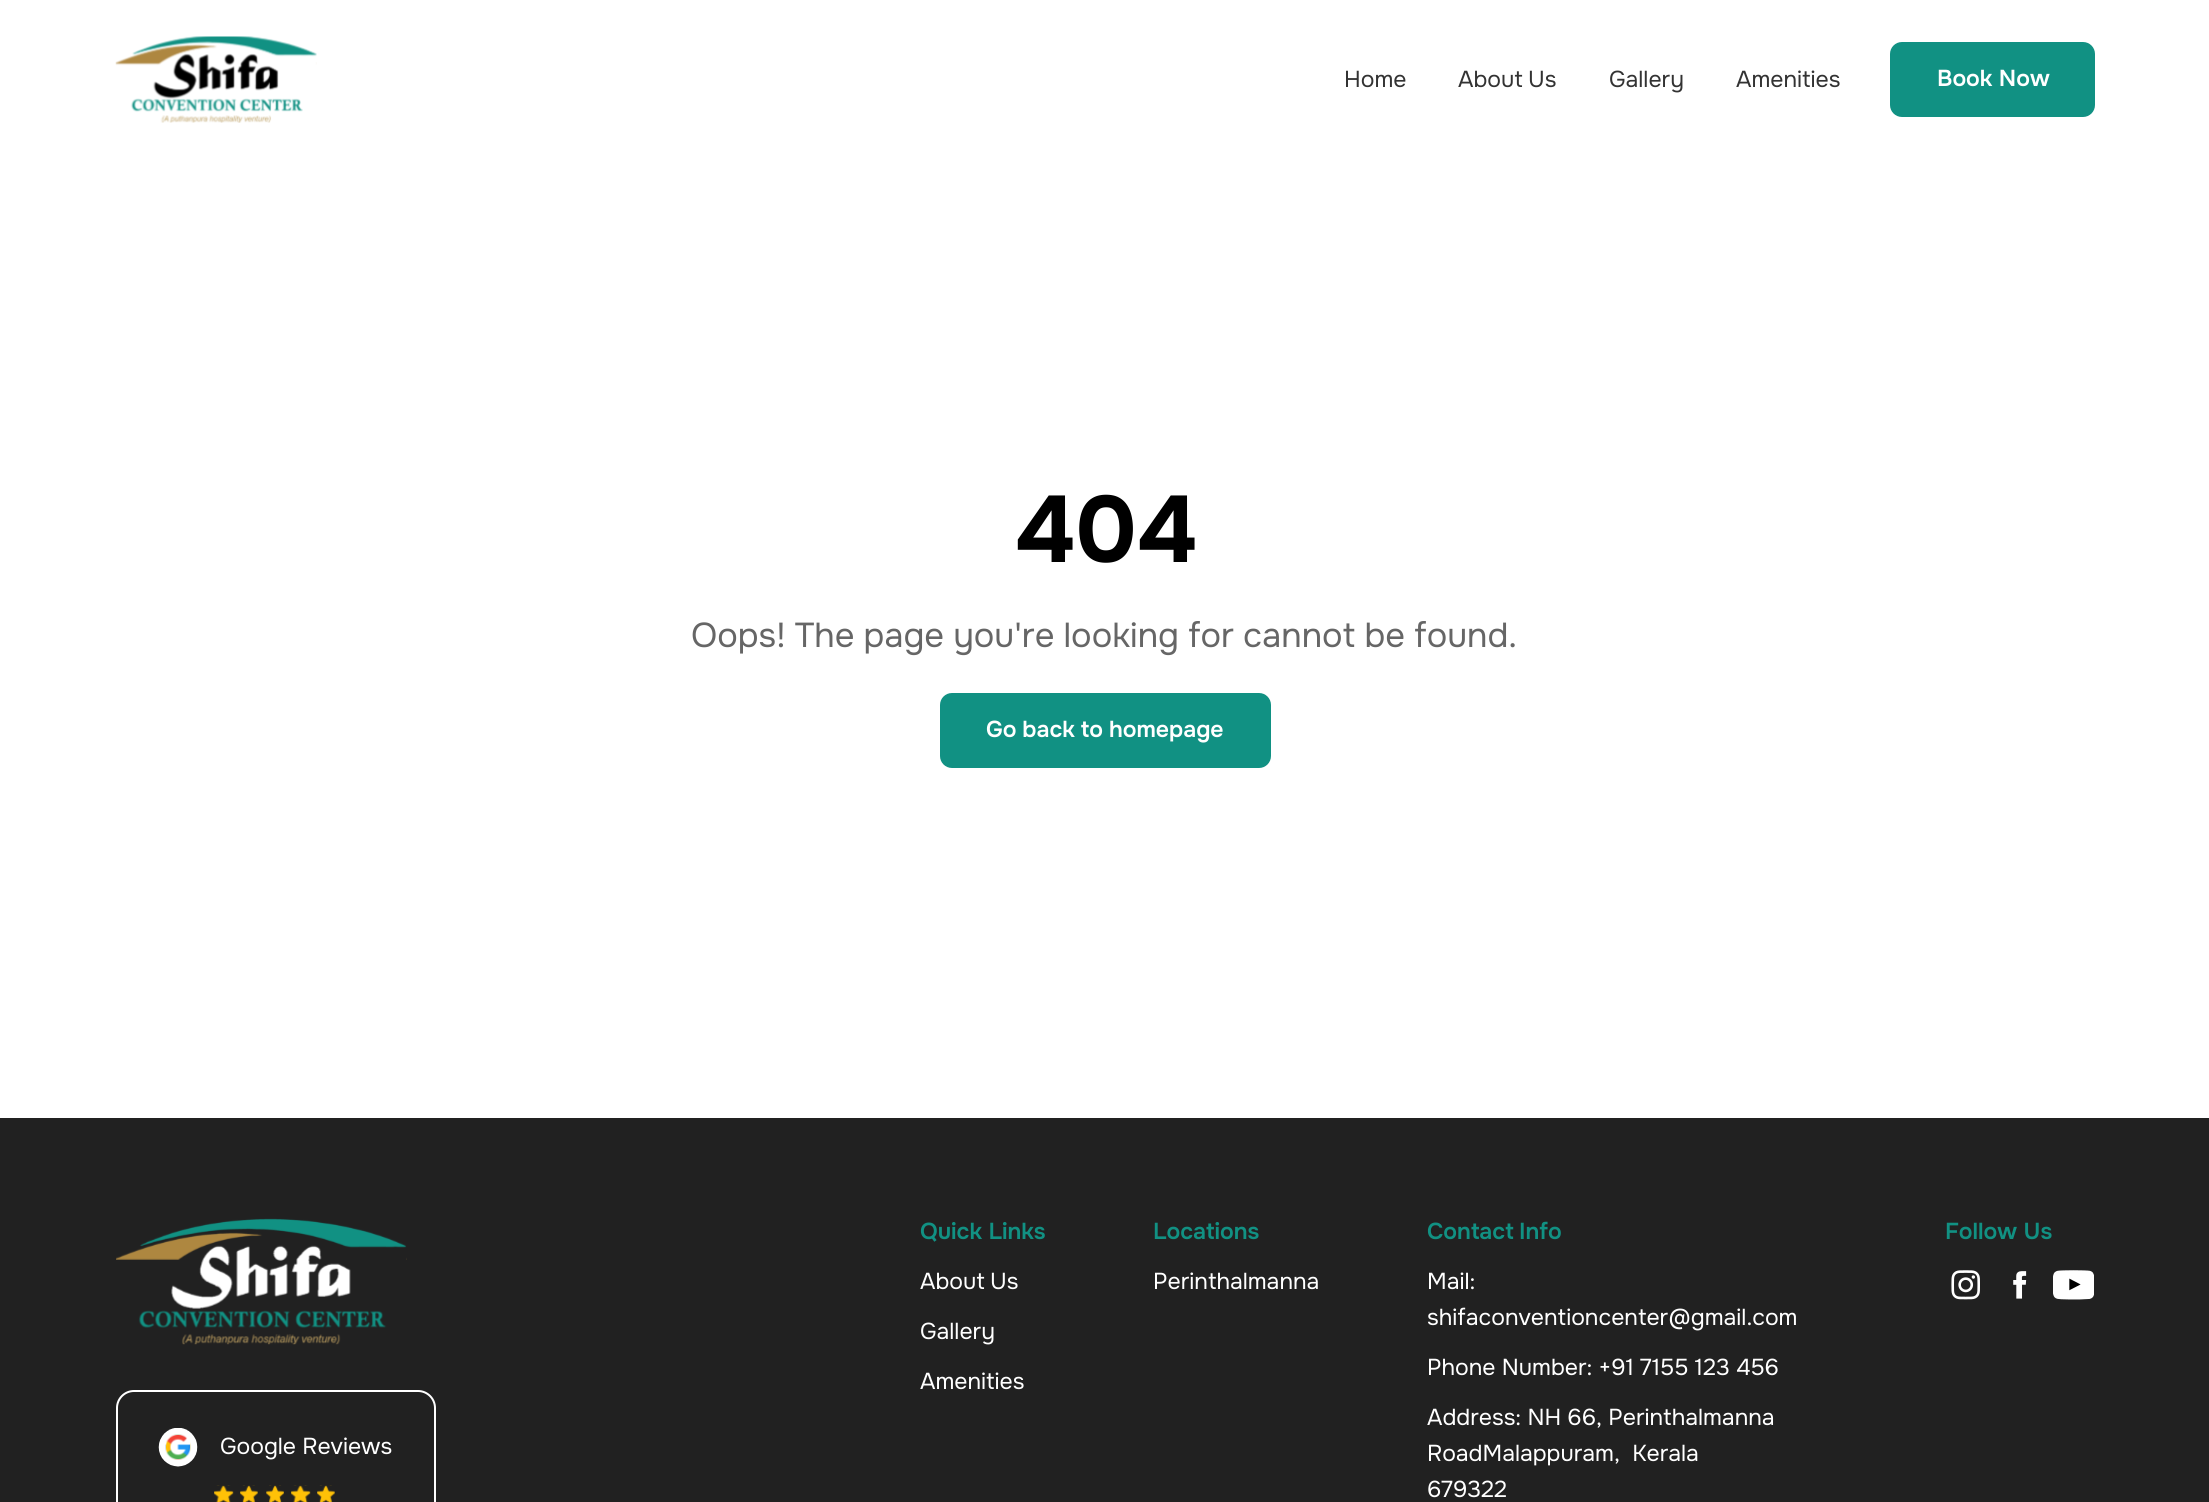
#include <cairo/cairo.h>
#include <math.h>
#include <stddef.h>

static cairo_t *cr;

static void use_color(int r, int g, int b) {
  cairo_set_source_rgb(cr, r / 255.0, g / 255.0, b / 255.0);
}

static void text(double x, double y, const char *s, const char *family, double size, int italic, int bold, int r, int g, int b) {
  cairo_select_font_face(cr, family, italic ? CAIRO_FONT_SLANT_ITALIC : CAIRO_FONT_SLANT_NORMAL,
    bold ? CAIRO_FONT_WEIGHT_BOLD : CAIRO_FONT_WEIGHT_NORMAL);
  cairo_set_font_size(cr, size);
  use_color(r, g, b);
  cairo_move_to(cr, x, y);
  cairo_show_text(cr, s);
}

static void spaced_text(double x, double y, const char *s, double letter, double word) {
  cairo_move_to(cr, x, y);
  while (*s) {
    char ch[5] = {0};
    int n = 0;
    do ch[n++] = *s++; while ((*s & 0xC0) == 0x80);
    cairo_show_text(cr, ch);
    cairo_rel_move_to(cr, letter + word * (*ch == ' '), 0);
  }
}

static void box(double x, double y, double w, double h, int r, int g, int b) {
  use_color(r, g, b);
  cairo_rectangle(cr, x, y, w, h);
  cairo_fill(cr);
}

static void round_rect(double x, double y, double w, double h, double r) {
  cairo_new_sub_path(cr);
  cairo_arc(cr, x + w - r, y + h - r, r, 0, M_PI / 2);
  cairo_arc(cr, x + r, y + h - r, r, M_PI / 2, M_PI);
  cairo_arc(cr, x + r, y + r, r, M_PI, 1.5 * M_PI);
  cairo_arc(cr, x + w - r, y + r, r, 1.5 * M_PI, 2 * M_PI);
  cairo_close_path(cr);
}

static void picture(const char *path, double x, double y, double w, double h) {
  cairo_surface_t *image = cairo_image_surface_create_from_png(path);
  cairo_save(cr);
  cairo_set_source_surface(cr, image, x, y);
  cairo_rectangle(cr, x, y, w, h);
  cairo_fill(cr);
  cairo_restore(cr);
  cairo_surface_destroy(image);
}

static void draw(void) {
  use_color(255, 255, 255);
  cairo_paint(cr);
  picture("img_01.png", 115, 36, 202, 87);
  use_color(17, 145, 131);
  round_rect(1890, 42, 205, 75, 12);
  cairo_fill(cr);
  round_rect(940, 693, 331, 75, 12);
  cairo_fill(cr);
  box(0, 1118, 2209, 384, 33, 33, 33);
  picture("img_02.png", 116, 1218, 291, 127);
  round_rect(117, 1391, 318, 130, 17);
  use_color(255, 255, 255);
  cairo_stroke(cr);
  picture("img_03.png", 158, 1428, 40, 39);
  picture("img_04.png", 214, 1485, 20, 17);
  picture("img_05.png", 240, 1485, 18, 17);
  picture("img_06.png", 266, 1485, 18, 17);
  picture("img_04.png", 291, 1485, 20, 17);
  picture("img_05.png", 317, 1485, 18, 17);
  picture("img_07.png", 1951, 1270, 29, 30);
  picture("img_08.png", 2013, 1271, 14, 28);
  picture("img_09.png", 2053, 1270, 41, 30);
  text(1344, 87, "Home", "Onest", 23, 0, 0, 51, 51, 51);
  spaced_text(1458, 87, "About Us", 0, -1);
  text(1609, 87, "Gallery", "Onest", 23, 0, 0, 51, 51, 51);
  text(1736, 87, "Amenities", "Onest", 23, 0, 0, 51, 51, 51);
  text(1937, 86, "Book Now", "Onest SemiBold", 23, 0, 0, 255, 255, 255);
  text(1015, 562, "404", "Onest", 94, 0, 1, 0, 0, 0);
  cairo_select_font_face(cr, "Onest", CAIRO_FONT_SLANT_NORMAL, CAIRO_FONT_WEIGHT_NORMAL);
  cairo_set_font_size(cr, 34.5);
  use_color(102, 102, 102);
  spaced_text(691, 647, "Oops! The page you're looking for cannot be found.", 0, -0.25);
  cairo_select_font_face(cr, "Onest SemiBold", CAIRO_FONT_SLANT_NORMAL, CAIRO_FONT_WEIGHT_NORMAL);
  cairo_set_font_size(cr, 23);
  use_color(255, 255, 255);
  spaced_text(986, 737, "Go back to homepage", 0, -0.5);
  text(220, 1454, "Google Reviews", "Onest", 23, 0, 0, 255, 255, 255);
  text(920, 1239, "Quick Links", "Onest SemiBold", 23, 0, 0, 17, 145, 131);
  cairo_select_font_face(cr, "Onest", CAIRO_FONT_SLANT_NORMAL, CAIRO_FONT_WEIGHT_NORMAL);
  use_color(255, 255, 255);
  spaced_text(920, 1289, "About Us", 0, -1);
  text(920, 1339, "Gallery", "Onest", 23, 0, 0, 255, 255, 255);
  text(920, 1389, "Amenities", "Onest", 23, 0, 0, 255, 255, 255);
  text(1153, 1239, "Locations", "Onest SemiBold", 23, 0, 0, 17, 145, 131);
  text(1153, 1289, "Perinthalmanna", "Onest", 23, 0, 0, 255, 255, 255);
  cairo_select_font_face(cr, "Onest SemiBold", CAIRO_FONT_SLANT_NORMAL, CAIRO_FONT_WEIGHT_NORMAL);
  use_color(17, 145, 131);
  spaced_text(1427, 1239, "Contact Info", 0, -1);
  text(1427, 1289, "Mail:", "Onest", 23, 0, 0, 255, 255, 255);
  text(1427, 1325, "shifaconventioncenter@gmail.com", "Onest", 23, 0, 0, 255, 255, 255);
  text(1427, 1375, "Phone Number: +91 7155 123 456", "Onest", 23, 0, 0, 255, 255, 255);
  text(1427, 1425, "Address: NH 66, Perinthalmanna", "Onest", 23, 0, 0, 255, 255, 255);
  spaced_text(1427, 1461, "RoadMalappuram, Kerala", 0, 6);
  text(1427, 1497, "679322", "Onest", 23, 0, 0, 255, 255, 255);
  text(1945, 1239, "Follow Us", "Onest SemiBold", 23, 0, 0, 17, 145, 131);
}

int main(void) {
  cairo_surface_t *surface = cairo_image_surface_create(CAIRO_FORMAT_RGB24, 2209, 1502);
  cr = cairo_create(surface);
  cairo_font_options_t *options = cairo_font_options_create();
  cairo_font_options_set_hint_metrics(options, CAIRO_HINT_METRICS_OFF);
  cairo_font_options_set_hint_style(options, CAIRO_HINT_STYLE_NONE);
  cairo_set_font_options(cr, options);
  cairo_set_miter_limit(cr, 4);
  draw();
  cairo_surface_write_to_png(surface, "out.png");
  cairo_font_options_destroy(options);
  cairo_destroy(cr);
  cairo_surface_destroy(surface);
  return 0;
}
